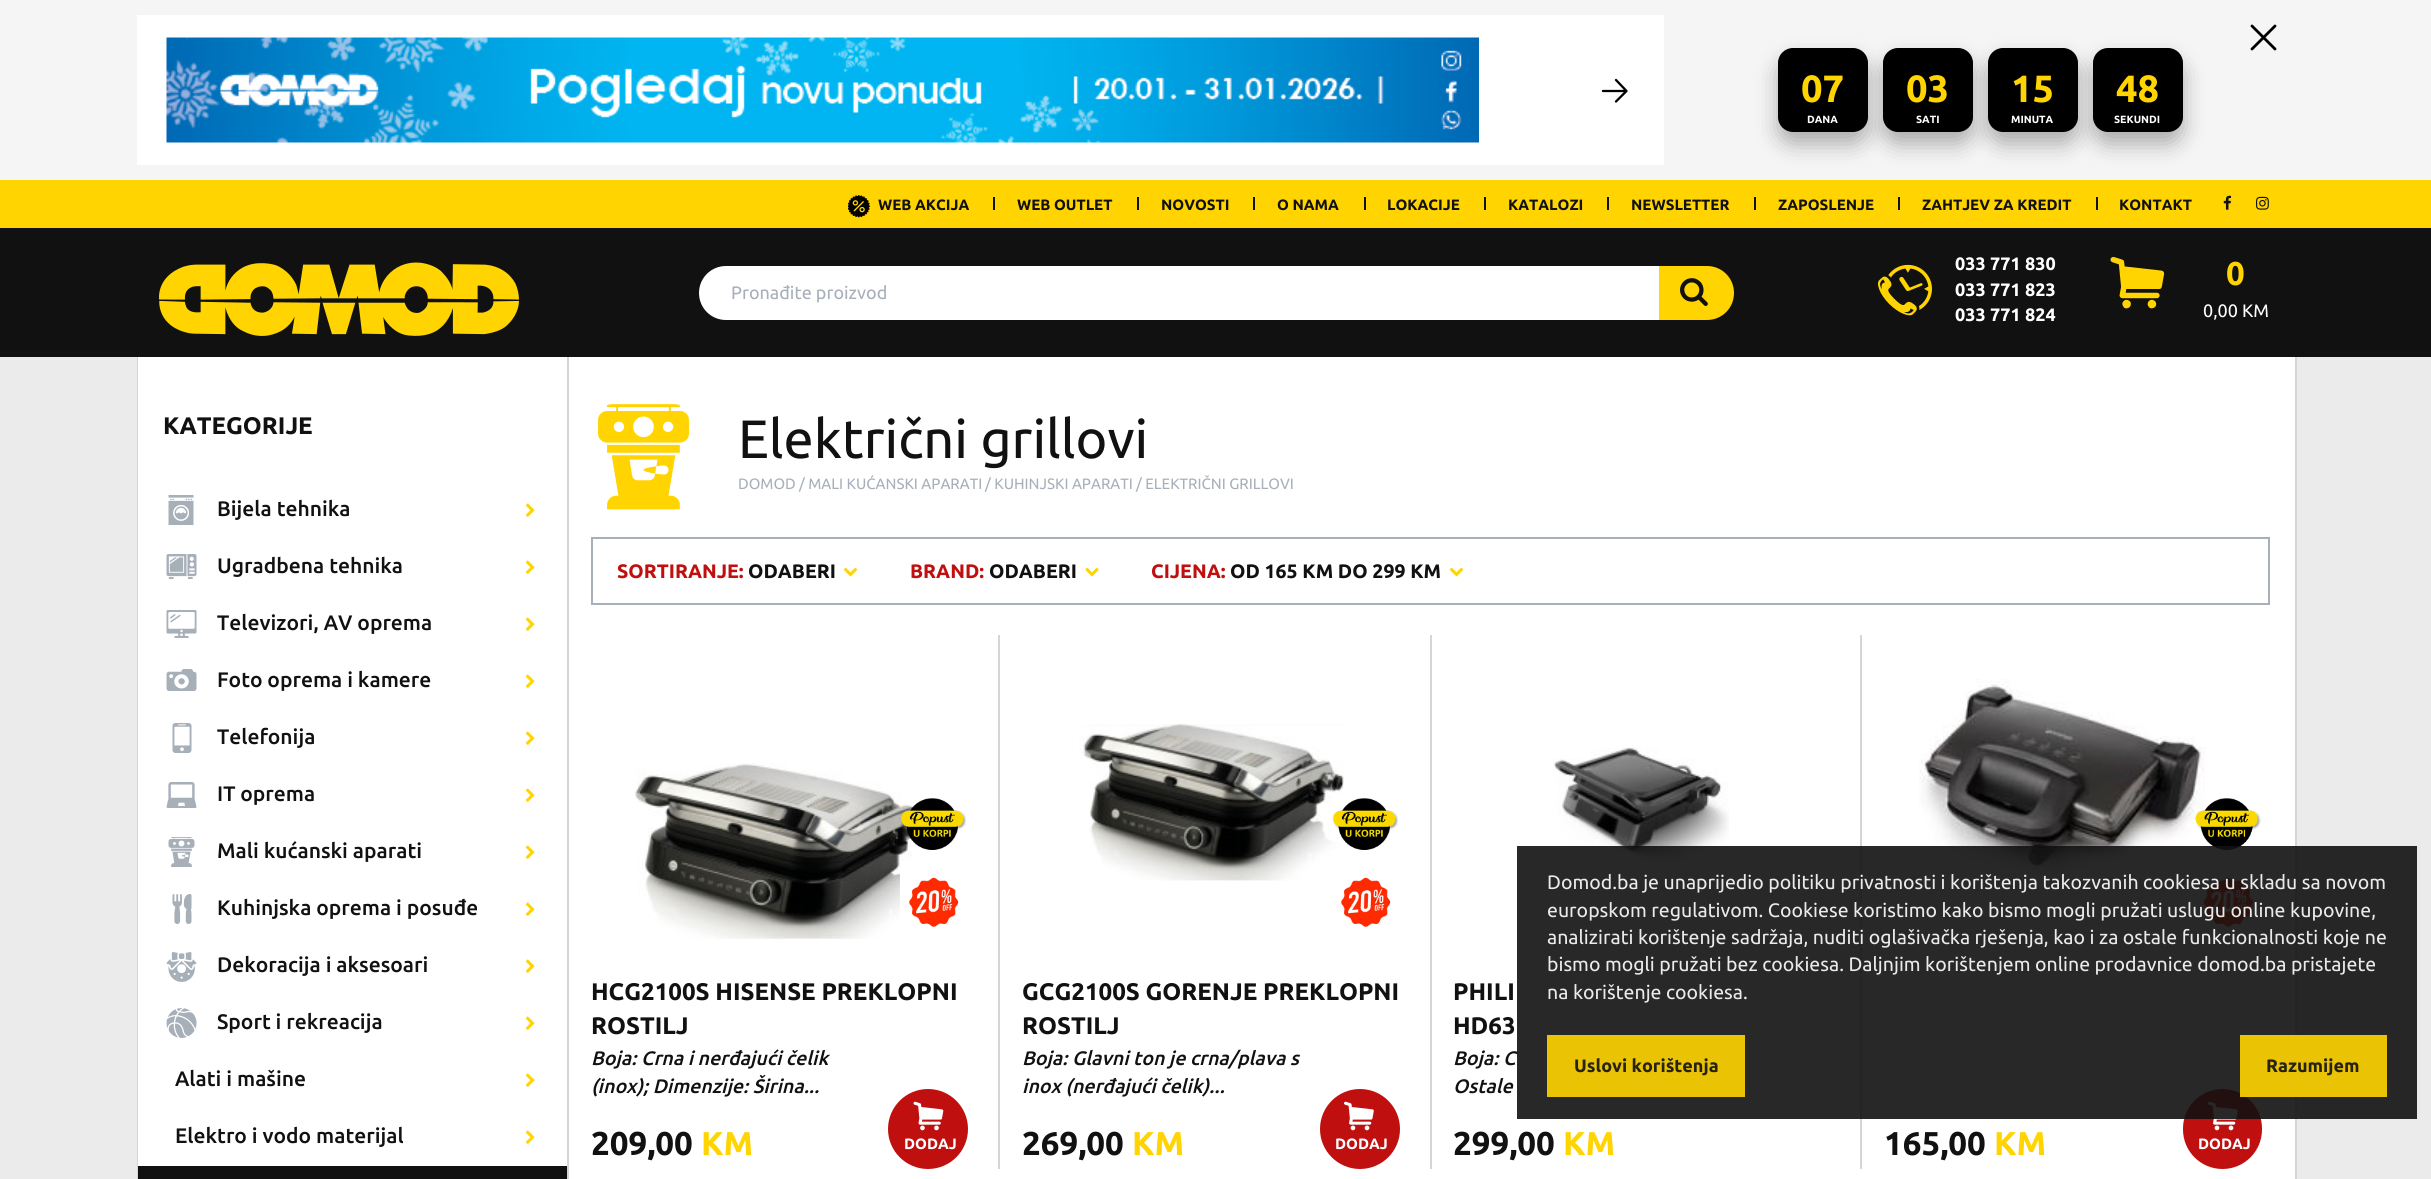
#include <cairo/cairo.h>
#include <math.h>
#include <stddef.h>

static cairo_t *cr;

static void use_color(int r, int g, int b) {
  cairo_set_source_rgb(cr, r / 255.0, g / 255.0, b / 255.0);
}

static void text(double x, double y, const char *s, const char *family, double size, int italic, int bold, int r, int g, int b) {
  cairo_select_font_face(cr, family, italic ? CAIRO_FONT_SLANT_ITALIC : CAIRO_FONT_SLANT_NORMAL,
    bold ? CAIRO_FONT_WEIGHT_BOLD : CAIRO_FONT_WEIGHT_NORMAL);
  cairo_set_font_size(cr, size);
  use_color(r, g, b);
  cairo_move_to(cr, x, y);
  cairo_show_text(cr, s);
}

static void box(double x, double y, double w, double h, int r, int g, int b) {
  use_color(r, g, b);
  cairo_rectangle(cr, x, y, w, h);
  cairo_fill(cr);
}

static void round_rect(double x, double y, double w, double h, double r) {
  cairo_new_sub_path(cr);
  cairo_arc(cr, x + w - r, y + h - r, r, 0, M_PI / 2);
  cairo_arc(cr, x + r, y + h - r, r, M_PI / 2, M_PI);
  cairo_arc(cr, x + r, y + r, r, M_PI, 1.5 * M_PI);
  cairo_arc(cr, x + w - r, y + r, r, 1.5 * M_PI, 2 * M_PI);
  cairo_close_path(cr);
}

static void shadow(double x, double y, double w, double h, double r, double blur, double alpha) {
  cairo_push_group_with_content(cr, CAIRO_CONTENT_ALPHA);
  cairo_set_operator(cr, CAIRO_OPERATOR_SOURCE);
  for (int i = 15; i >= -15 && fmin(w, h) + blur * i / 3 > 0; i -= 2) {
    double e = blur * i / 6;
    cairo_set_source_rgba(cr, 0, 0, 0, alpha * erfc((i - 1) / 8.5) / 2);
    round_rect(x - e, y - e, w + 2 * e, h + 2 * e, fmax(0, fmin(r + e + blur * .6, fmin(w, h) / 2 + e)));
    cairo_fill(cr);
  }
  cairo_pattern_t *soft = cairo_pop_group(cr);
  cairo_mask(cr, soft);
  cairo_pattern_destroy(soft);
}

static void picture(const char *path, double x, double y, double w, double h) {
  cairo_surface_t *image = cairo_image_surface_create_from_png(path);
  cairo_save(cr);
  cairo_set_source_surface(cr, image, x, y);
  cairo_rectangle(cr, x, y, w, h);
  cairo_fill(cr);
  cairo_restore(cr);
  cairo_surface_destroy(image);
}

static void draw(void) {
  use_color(235, 235, 235);
  cairo_paint(cr);
  box(0, 0, 2431, 180, 245, 245, 245);
  box(137, 15, 1527, 150, 255, 255, 255);
  picture("img_01.png", 166, 37, 1313, 106);
  cairo_new_path(cr);
  cairo_move_to(cr, 1603, 91);
  cairo_line_to(cr, 1626.5, 91);
  cairo_move_to(cr, 1626.5, 91);
  cairo_line_to(cr, 1616, 80);
  cairo_move_to(cr, 1626.5, 91);
  cairo_line_to(cr, 1616, 101.5);
  use_color(0, 0, 0);
  cairo_set_line_width(cr, 2.3);
  cairo_set_line_cap(cr, CAIRO_LINE_CAP_ROUND);
  cairo_set_line_join(cr, CAIRO_LINE_JOIN_ROUND);
  cairo_stroke(cr);
  cairo_new_path(cr);
  cairo_move_to(cr, 2252, 49);
  cairo_line_to(cr, 2275, 26);
  cairo_move_to(cr, 2252, 26);
  cairo_line_to(cr, 2275, 49);
  cairo_set_line_width(cr, 2.8);
  cairo_stroke(cr);
  use_color(0, 0, 0);
  shadow(1778, 60, 90, 84, 15, 11, 0.3);
  use_color(0, 0, 0);
  round_rect(1778, 48, 90, 84, 15);
  cairo_fill(cr);
  use_color(0, 0, 0);
  shadow(1883, 60, 90, 84, 15, 11, 0.3);
  use_color(0, 0, 0);
  round_rect(1883, 48, 90, 84, 15);
  cairo_fill(cr);
  use_color(0, 0, 0);
  shadow(1988, 60, 90, 84, 15, 11, 0.3);
  use_color(0, 0, 0);
  round_rect(1988, 48, 90, 84, 15);
  cairo_fill(cr);
  use_color(0, 0, 0);
  shadow(2093, 60, 90, 84, 15, 11, 0.3);
  use_color(0, 0, 0);
  round_rect(2093, 48, 90, 84, 15);
  cairo_fill(cr);
  box(0, 180, 2431, 48, 255, 212, 0);
  picture("img_02.png", 848, 195, 22, 23);
  box(993, 197, 2, 13, 17, 17, 17);
  box(1137, 197, 2, 13, 17, 17, 17);
  box(1253, 197, 2, 13, 17, 17, 17);
  box(1364, 197, 2, 13, 17, 17, 17);
  box(1484, 197, 2, 13, 17, 17, 17);
  box(1607, 197, 2, 13, 17, 17, 17);
  box(1754, 197, 2, 13, 17, 17, 17);
  box(1898, 197, 2, 13, 17, 17, 17);
  box(2096, 197, 2, 13, 17, 17, 17);
  picture("img_03.png", 2223, 195, 9, 15);
  picture("img_04.png", 2256, 196, 13, 14);
  box(0, 228, 2431, 129, 17, 17, 17);
  picture("img_05.png", 159, 262, 360, 74);
  use_color(255, 255, 255);
  cairo_new_path(cr);
  cairo_move_to(cr, 726, 266);
  cairo_line_to(cr, 1659, 266);
  cairo_line_to(cr, 1659, 320);
  cairo_line_to(cr, 726, 320);
  cairo_curve_to(cr, 711, 320, 699, 308, 699, 293);
  cairo_curve_to(cr, 699, 278, 711, 266, 726, 266);
  cairo_close_path(cr);
  cairo_fill(cr);
  use_color(255, 212, 0);
  cairo_new_path(cr);
  cairo_move_to(cr, 1659, 266);
  cairo_line_to(cr, 1707, 266);
  cairo_curve_to(cr, 1722, 266, 1734, 278, 1734, 293);
  cairo_curve_to(cr, 1734, 308, 1722, 320, 1707, 320);
  cairo_line_to(cr, 1659, 320);
  cairo_close_path(cr);
  cairo_fill(cr);
  picture("img_06.png", 1680, 278, 28, 28);
  picture("img_07.png", 1878, 264, 54, 52);
  picture("img_08.png", 2110, 256, 55, 53);
  box(569, 357, 1726, 822, 255, 255, 255);
  box(2295, 357, 2, 822, 212, 214, 213);
  box(137, 357, 1, 822, 212, 214, 213);
  box(138, 357, 429, 809, 255, 255, 255);
  picture("img_09.png", 168, 495, 26, 30);
  picture("img_10.png", 525, 503, 10, 14);
  picture("img_11.png", 166, 554, 31, 25);
  picture("img_10.png", 525, 560, 10, 14);
  picture("img_12.png", 166, 610, 31, 28);
  picture("img_10.png", 525, 617, 10, 14);
  picture("img_13.png", 166, 669, 31, 22);
  picture("img_10.png", 525, 674, 10, 14);
  picture("img_14.png", 172, 723, 20, 30);
  picture("img_10.png", 525, 731, 10, 14);
  picture("img_15.png", 166, 782, 31, 26);
  picture("img_10.png", 525, 788, 10, 14);
  picture("img_16.png", 168, 837, 27, 30);
  picture("img_10.png", 525, 845, 10, 14);
  picture("img_17.png", 172, 894, 20, 30);
  picture("img_10.png", 525, 902, 10, 14);
  picture("img_18.png", 166, 952, 31, 30);
  picture("img_10.png", 525, 959, 10, 14);
  picture("img_19.png", 166, 1008, 31, 30);
  picture("img_10.png", 525, 1016, 10, 14);
  picture("img_10.png", 525, 1073, 10, 14);
  picture("img_10.png", 525, 1130, 10, 14);
  box(138, 1166, 429, 13, 17, 17, 17);
  box(567, 357, 2, 822, 212, 214, 213);
  picture("img_20.png", 598, 404, 91, 106);
  cairo_rectangle(cr, 592, 538, 1677, 66);
  use_color(167, 175, 185);
  cairo_set_line_width(cr, 2);
  cairo_set_line_cap(cr, CAIRO_LINE_CAP_BUTT);
  cairo_set_line_join(cr, CAIRO_LINE_JOIN_MITER);
  cairo_stroke(cr);
  picture("img_21.png", 843, 567, 15, 10);
  picture("img_22.png", 1085, 567, 14, 10);
  picture("img_21.png", 1449, 567, 15, 10);
  box(998, 635, 2, 534, 212, 214, 213);
  picture("img_23.png", 634, 763, 298, 176);
  picture("img_24.png", 900, 798, 66, 52);
  picture("img_25.png", 900, 873, 59, 55);
  use_color(191, 15, 15);
  cairo_arc(cr, 928, 1129, 40, 0, 2 * M_PI);
  cairo_fill(cr);
  picture("img_26.png", 913, 1101, 31, 30);
  box(1430, 635, 2, 534, 212, 214, 213);
  picture("img_27.png", 1079, 724, 265, 157);
  picture("img_28.png", 1332, 798, 66, 52);
  picture("img_29.png", 1341, 877, 50, 51);
  use_color(191, 15, 15);
  cairo_arc(cr, 1360, 1129, 40, 0, 2 * M_PI);
  cairo_fill(cr);
  picture("img_30.png", 1344, 1101, 30, 30);
  box(1860, 635, 2, 534, 212, 214, 213);
  picture("img_31.png", 1553, 747, 176, 118);
  picture("img_32.png", 1919, 679, 287, 196);
  picture("img_33.png", 2195, 798, 66, 52);
  picture("img_34.png", 2203, 877, 51, 51);
  use_color(191, 15, 15);
  round_rect(2183, 1089, 79, 80, 39.5);
  cairo_fill(cr);
  picture("img_30.png", 2208, 1101, 30, 30);
  text(1801, 102, "07", "Ubuntu", 38, 0, 1, 255, 212, 0);
  text(1807, 123, "DANA", "Ubuntu", 10.5, 0, 1, 255, 255, 255);
  text(1906, 102, "03", "Ubuntu", 38, 0, 1, 255, 212, 0);
  text(1916, 123, "SATI", "Ubuntu", 10.5, 0, 1, 255, 255, 255);
  text(2011, 102, "15", "Ubuntu", 38, 0, 1, 255, 212, 0);
  text(2011, 123, "MINUTA", "Ubuntu", 10.5, 0, 1, 255, 255, 255);
  text(2116, 102, "48", "Ubuntu", 38, 0, 1, 255, 212, 0);
  text(2114, 123, "SEKUNDI", "Ubuntu", 10.5, 0, 1, 255, 255, 255);
  text(878, 210, "WEB AKCIJA", "Ubuntu", 15, 0, 1, 17, 17, 17);
  text(1017, 210, "WEB OUTLET", "Ubuntu", 15, 0, 1, 17, 17, 17);
  text(1161, 210, "NOVOSTI", "Ubuntu", 15, 0, 1, 17, 17, 17);
  text(1277, 210, "O NAMA", "Ubuntu", 15, 0, 1, 17, 17, 17);
  text(1387, 210, "LOKACIJE", "Ubuntu", 15, 0, 1, 17, 17, 17);
  text(1508, 210, "KATALOZI", "Ubuntu", 15, 0, 1, 17, 17, 17);
  text(1631, 210, "NEWSLETTER", "Ubuntu", 15, 0, 1, 17, 17, 17);
  text(1778, 210, "ZAPOSLENJE", "Ubuntu", 15, 0, 1, 17, 17, 17);
  text(1922, 210, "ZAHTJEV ZA KREDIT", "Ubuntu", 15, 0, 1, 17, 17, 17);
  text(2119, 210, "KONTAKT", "Ubuntu", 15, 0, 1, 17, 17, 17);
  text(731, 299, "Pronađite proizvod", "Ubuntu", 18, 0, 0, 167, 175, 185);
  text(1955, 270, "033 771 830", "Ubuntu", 18, 0, 1, 255, 255, 255);
  text(1955, 296, "033 771 823", "Ubuntu", 18, 0, 1, 255, 255, 255);
  text(1955, 321, "033 771 824", "Ubuntu", 18, 0, 1, 255, 255, 255);
  text(2226, 285, "0", "Ubuntu", 33, 0, 1, 255, 212, 0);
  text(2203, 317, "0,00 KM", "Ubuntu", 18, 0, 0, 255, 255, 255);
  text(163, 434, "KATEGORIJE", "Ubuntu", 24, 0, 1, 17, 17, 17);
  text(217, 516, "Bijela tehnika", "Ubuntu Medium", 21, 0, 0, 17, 17, 17);
  text(217, 573, "Ugradbena tehnika", "Ubuntu Medium", 21, 0, 0, 17, 17, 17);
  text(217, 630, "Televizori, AV oprema", "Ubuntu Medium", 21, 0, 0, 17, 17, 17);
  text(217, 687, "Foto oprema i kamere", "Ubuntu Medium", 21, 0, 0, 17, 17, 17);
  text(217, 744, "Telefonija", "Ubuntu Medium", 21, 0, 0, 17, 17, 17);
  text(217, 801, "IT oprema", "Ubuntu Medium", 21, 0, 0, 17, 17, 17);
  text(217, 858, "Mali kućanski aparati", "Ubuntu Medium", 21, 0, 0, 17, 17, 17);
  text(217, 915, "Kuhinjska oprema i posuđe", "Ubuntu Medium", 21, 0, 0, 17, 17, 17);
  text(217, 972, "Dekoracija i aksesoari", "Ubuntu Medium", 21, 0, 0, 17, 17, 17);
  text(217, 1029, "Sport i rekreacija", "Ubuntu Medium", 21, 0, 0, 17, 17, 17);
  text(175, 1086, "Alati i mašine", "Ubuntu Medium", 21, 0, 0, 17, 17, 17);
  text(175, 1143, "Elektro i vodo materijal", "Ubuntu Medium", 21, 0, 0, 17, 17, 17);
  text(738, 458, "Električni grillovi", "Ubuntu", 54, 0, 0, 17, 17, 17);
  text(738, 489, "DOMOD", "Ubuntu", 15, 0, 0, 167, 175, 185);
  text(799, 489, "/ MALI KUĆANSKI APARATI", "Ubuntu", 15, 0, 0, 167, 175, 185);
  text(985, 489, "/ KUHINJSKI APARATI", "Ubuntu", 15, 0, 0, 167, 175, 185);
  text(1136, 489, "/ ELEKTRIČNI GRILLOVI", "Ubuntu", 15, 0, 0, 167, 175, 185);
  text(617, 578, "SORTIRANJE:", "Ubuntu", 19.5, 0, 1, 191, 15, 15);
  text(748, 578, "ODABERI", "Ubuntu", 19.5, 0, 1, 17, 17, 17);
  text(910, 578, "BRAND:", "Ubuntu", 19.5, 0, 1, 191, 15, 15);
  text(989, 578, "ODABERI", "Ubuntu", 19.5, 0, 1, 17, 17, 17);
  text(1151, 578, "CIJENA:", "Ubuntu", 19.5, 0, 1, 191, 15, 15);
  text(1230, 578, "OD 165 KM DO 299 KM", "Ubuntu", 19.5, 0, 1, 17, 17, 17);
  text(591, 1000, "HCG2100S HISENSE PREKLOPNI", "Ubuntu", 24, 0, 1, 17, 17, 17);
  text(591, 1034, "ROSTILJ", "Ubuntu", 24, 0, 1, 17, 17, 17);
  text(591, 1065, "Boja: Crna i nerđajući čelik", "Ubuntu Medium", 19.5, 1, 0, 17, 17, 17);
  text(591, 1093, "(inox); Dimenzije: Širina...", "Ubuntu Medium", 19.5, 1, 0, 17, 17, 17);
  text(591, 1155, "209,00", "Ubuntu", 33, 0, 1, 17, 17, 17);
  text(701, 1155, "KM", "Ubuntu", 33, 0, 1, 255, 212, 0);
  text(904, 1149, "DODAJ", "Ubuntu", 15, 0, 1, 255, 255, 255);
  text(1022, 1000, "GCG2100S GORENJE PREKLOPNI", "Ubuntu", 24, 0, 1, 17, 17, 17);
  text(1022, 1034, "ROSTILJ", "Ubuntu", 24, 0, 1, 17, 17, 17);
  text(1022, 1065, "Boja: Glavni ton je crna/plava s", "Ubuntu Medium", 19.5, 1, 0, 17, 17, 17);
  text(1022, 1093, "inox (nerđajući čelik)...", "Ubuntu Medium", 19.5, 1, 0, 17, 17, 17);
  text(1022, 1155, "269,00", "Ubuntu", 33, 0, 1, 17, 17, 17);
  text(1132, 1155, "KM", "Ubuntu", 33, 0, 1, 255, 212, 0);
  text(1335, 1149, "DODAJ", "Ubuntu", 15, 0, 1, 255, 255, 255);
  text(1453, 1000, "PHILI", "Ubuntu", 24, 0, 1, 17, 17, 17);
  text(1453, 1034, "HD63", "Ubuntu", 24, 0, 1, 17, 17, 17);
  text(1453, 1065, "Boja: C", "Ubuntu Medium", 19.5, 1, 0, 17, 17, 17);
  text(1453, 1093, "Ostale", "Ubuntu Medium", 19.5, 1, 0, 17, 17, 17);
  text(1453, 1155, "299,00", "Ubuntu", 33, 0, 1, 17, 17, 17);
  text(1563, 1155, "KM", "Ubuntu", 33, 0, 1, 255, 212, 0);
  text(1884, 1155, "165,00", "Ubuntu", 33, 0, 1, 17, 17, 17);
  text(1994, 1155, "KM", "Ubuntu", 33, 0, 1, 255, 212, 0);
  text(2198, 1149, "DODAJ", "Ubuntu", 15, 0, 1, 255, 255, 255);
  cairo_set_source_rgba(cr, 0.067, 0.067, 0.067, 0.9);
  cairo_rectangle(cr, 1517, 846, 900, 273);
  cairo_fill(cr);
  text(1547, 889, "Domod.ba je unaprijedio politiku privatnosti i korištenja takozvanih cookiesa u skladu sa novom", "Ubuntu", 19.5, 0, 0, 234, 234, 234);
  text(1547, 917, "europskom regulativom. Cookiese koristimo kako bismo mogli pružati uslugu online kupovine,", "Ubuntu", 19.5, 0, 0, 234, 234, 234);
  text(1547, 944, "analizirati korištenje sadržaja, nuditi oglašivačka rješenja, kao i za ostale funkcionalnosti koje ne", "Ubuntu", 19.5, 0, 0, 234, 234, 234);
  text(1547, 971, "bismo mogli pružati bez cookiesa. Daljnjim korištenjem online prodavnice domod.ba pristajete", "Ubuntu", 19.5, 0, 0, 234, 234, 234);
  text(1547, 999, "na korištenje cookiesa.", "Ubuntu", 19.5, 0, 0, 234, 234, 234);
  cairo_set_source_rgba(cr, 1, 0.831, 0, 0.9);
  cairo_rectangle(cr, 1547, 1035, 198, 62);
  cairo_fill(cr);
  text(1574, 1072, "Uslovi korištenja", "Ubuntu", 18, 0, 1, 39, 35, 16);
  cairo_set_source_rgba(cr, 1, 0.831, 0, 0.9);
  cairo_rectangle(cr, 2240, 1035, 147, 62);
  cairo_fill(cr);
  text(2266, 1072, "Razumijem", "Ubuntu", 18, 0, 1, 39, 35, 16);
}

int main(void) {
  cairo_surface_t *surface = cairo_image_surface_create(CAIRO_FORMAT_RGB24, 2431, 1179);
  cr = cairo_create(surface);
  cairo_font_options_t *options = cairo_font_options_create();
  cairo_font_options_set_hint_metrics(options, CAIRO_HINT_METRICS_OFF);
  cairo_font_options_set_hint_style(options, CAIRO_HINT_STYLE_NONE);
  cairo_set_font_options(cr, options);
  cairo_set_miter_limit(cr, 4);
  draw();
  cairo_surface_write_to_png(surface, "out.png");
  cairo_font_options_destroy(options);
  cairo_destroy(cr);
  cairo_surface_destroy(surface);
  return 0;
}
